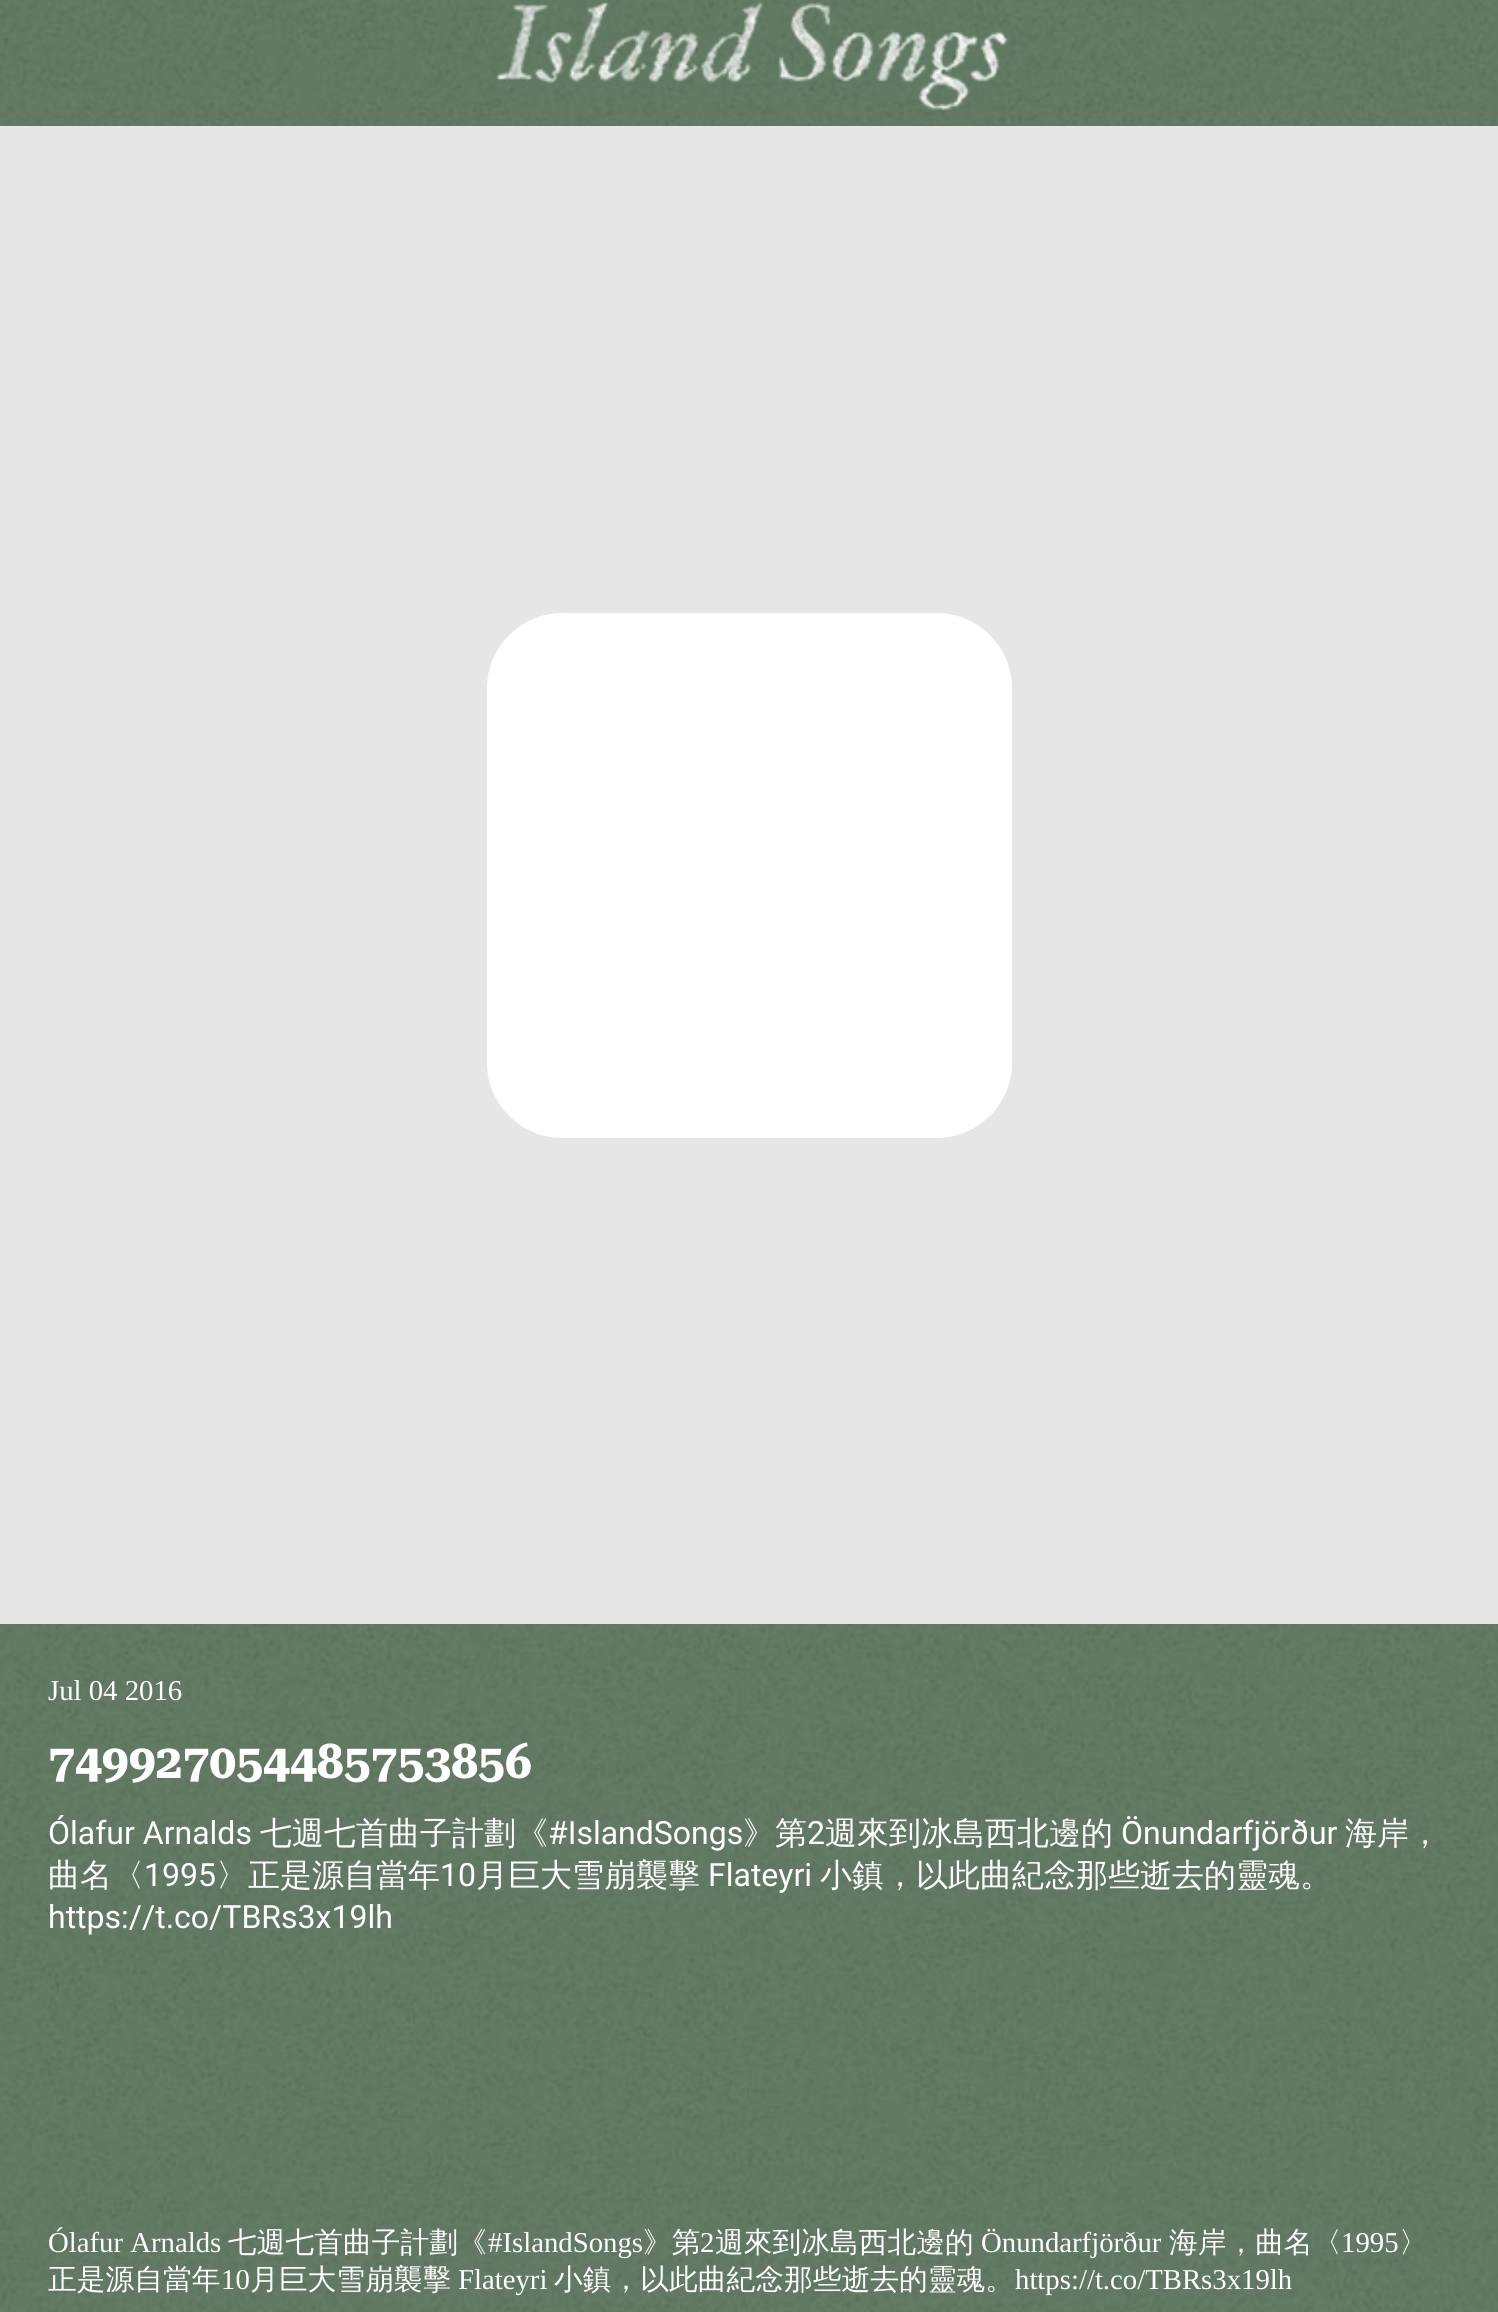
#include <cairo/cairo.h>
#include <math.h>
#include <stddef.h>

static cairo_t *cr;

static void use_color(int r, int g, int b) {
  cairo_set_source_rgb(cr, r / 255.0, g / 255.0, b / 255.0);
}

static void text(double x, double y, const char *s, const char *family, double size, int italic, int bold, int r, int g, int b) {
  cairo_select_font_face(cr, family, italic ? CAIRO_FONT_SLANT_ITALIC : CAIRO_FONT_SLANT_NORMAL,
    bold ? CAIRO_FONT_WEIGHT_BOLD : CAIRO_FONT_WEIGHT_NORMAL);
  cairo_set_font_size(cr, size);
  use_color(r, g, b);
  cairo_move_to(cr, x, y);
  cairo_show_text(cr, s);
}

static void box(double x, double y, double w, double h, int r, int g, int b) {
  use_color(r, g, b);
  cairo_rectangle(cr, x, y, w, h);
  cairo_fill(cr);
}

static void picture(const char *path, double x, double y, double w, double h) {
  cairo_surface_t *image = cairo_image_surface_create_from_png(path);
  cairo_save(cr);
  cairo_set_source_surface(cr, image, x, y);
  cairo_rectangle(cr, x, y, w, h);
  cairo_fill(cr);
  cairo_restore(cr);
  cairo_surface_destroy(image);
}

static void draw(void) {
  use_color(255, 255, 255);
  cairo_paint(cr);
  picture("img_01.png", 0, 0, 1498, 2312);
  picture("img_02.png", 495, 1, 514, 109);
  box(0, 126, 1498, 1498, 230, 230, 230);
  use_color(255, 255, 255);
  cairo_new_path(cr);
  cairo_move_to(cr, 487, 688);
  cairo_curve_to(cr, 487, 647, 521, 613, 562, 613);
  cairo_line_to(cr, 937, 613);
  cairo_curve_to(cr, 978, 613, 1012, 647, 1012, 688);
  cairo_line_to(cr, 1012, 1063);
  cairo_curve_to(cr, 1012, 1104, 978, 1138, 937, 1138);
  cairo_line_to(cr, 562, 1138);
  cairo_curve_to(cr, 521, 1138, 487, 1104, 487, 1063);
  cairo_close_path(cr);
  cairo_fill(cr);
  text(48, 1700, "Jul 04 2016", "Liberation Serif", 28.75, 0, 0, 255, 255, 255);
  text(48, 1778, "749927054485753856", "Roboto Serif", 48, 0, 1, 255, 255, 255);
  text(48, 1844, "Ólafur Arnalds", "Roboto", 32, 0, 0, 255, 255, 255);
  text(260, 1844, "七週七首曲子計劃《", "WenQuanYi Zen Hei Medium", 32, 0, 0, 255, 255, 255);
  text(548, 1844, "#IslandSongs", "Roboto", 32, 0, 0, 255, 255, 255);
  text(743, 1844, "》第", "WenQuanYi Zen Hei Medium", 32, 0, 0, 255, 255, 255);
  text(807, 1844, "2", "Roboto", 32, 0, 0, 255, 255, 255);
  text(825, 1844, "週來到冰島西北邊的", "WenQuanYi Zen Hei Medium", 32, 0, 0, 255, 255, 255);
  text(1121, 1844, "Önundarfjörður", "Roboto", 32, 0, 0, 255, 255, 255);
  text(1345, 1844, "海岸，", "WenQuanYi Zen Hei Medium", 32, 0, 0, 255, 255, 255);
  text(48, 1886, "曲名〈", "WenQuanYi Zen Hei Medium", 32, 0, 0, 255, 255, 255);
  text(144, 1886, "1995", "Roboto", 32, 0, 0, 255, 255, 255);
  text(216, 1886, "〉正是源自當年", "WenQuanYi Zen Hei Medium", 32, 0, 0, 255, 255, 255);
  text(440, 1886, "10", "Roboto", 32, 0, 0, 255, 255, 255);
  text(476, 1886, "月巨大雪崩襲擊", "WenQuanYi Zen Hei Medium", 32, 0, 0, 255, 255, 255);
  text(708, 1886, "Flateyri", "Roboto", 32, 0, 0, 255, 255, 255);
  text(820, 1886, "小鎮，以此曲紀念那些逝去的靈魂。", "WenQuanYi Zen Hei Medium", 32, 0, 0, 255, 255, 255);
  text(48, 1928, "https://t.co/TBRs3x19lh", "Roboto", 32, 0, 0, 255, 255, 255);
  text(48, 2252, "Ólafur Arnalds", "Liberation Serif", 28.75, 0, 0, 255, 255, 255);
  text(228, 2252, "七週七首曲子計劃《", "WenQuanYi Zen Hei Medium", 28.75, 0, 0, 255, 255, 255);
  text(488, 2252, "#IslandSongs", "Liberation Serif", 28.75, 0, 0, 255, 255, 255);
  text(643, 2252, "》第", "WenQuanYi Zen Hei Medium", 28.75, 0, 0, 255, 255, 255);
  text(700, 2252, "2", "Liberation Serif", 28.75, 0, 0, 255, 255, 255);
  text(715, 2252, "週來到冰島西北邊的", "WenQuanYi Zen Hei Medium", 28.75, 0, 0, 255, 255, 255);
  text(981, 2252, "Önundarfjörður", "Liberation Serif", 28.75, 0, 0, 255, 255, 255);
  text(1169, 2252, "海岸，曲名〈", "WenQuanYi Zen Hei Medium", 28.75, 0, 0, 255, 255, 255);
  text(1341, 2252, "1995", "Liberation Serif", 28.75, 0, 0, 255, 255, 255);
  text(1399, 2252, "〉", "WenQuanYi Zen Hei Medium", 28.75, 0, 0, 255, 255, 255);
  text(48, 2289, "正是源自當年", "WenQuanYi Zen Hei Medium", 28.75, 0, 0, 255, 255, 255);
  text(221, 2289, "10", "Liberation Serif", 28.75, 0, 0, 255, 255, 255);
  text(250, 2289, "月巨大雪崩襲擊", "WenQuanYi Zen Hei Medium", 28.75, 0, 0, 255, 255, 255);
  text(458, 2289, "Flateyri", "Liberation Serif", 28.75, 0, 0, 255, 255, 255);
  text(554, 2289, "小鎮，以此曲紀念那些逝去的靈魂。", "WenQuanYi Zen Hei Medium", 28.75, 0, 0, 255, 255, 255);
  text(1015, 2289, "https://t.co/TBRs3x19lh", "Liberation Serif", 28.75, 0, 0, 255, 255, 255);
}

int main(void) {
  cairo_surface_t *surface = cairo_image_surface_create(CAIRO_FORMAT_RGB24, 1498, 2312);
  cr = cairo_create(surface);
  cairo_font_options_t *options = cairo_font_options_create();
  cairo_font_options_set_hint_metrics(options, CAIRO_HINT_METRICS_OFF);
  cairo_font_options_set_hint_style(options, CAIRO_HINT_STYLE_NONE);
  cairo_set_font_options(cr, options);
  cairo_set_miter_limit(cr, 4);
  draw();
  cairo_surface_write_to_png(surface, "out.png");
  cairo_font_options_destroy(options);
  cairo_destroy(cr);
  cairo_surface_destroy(surface);
  return 0;
}
